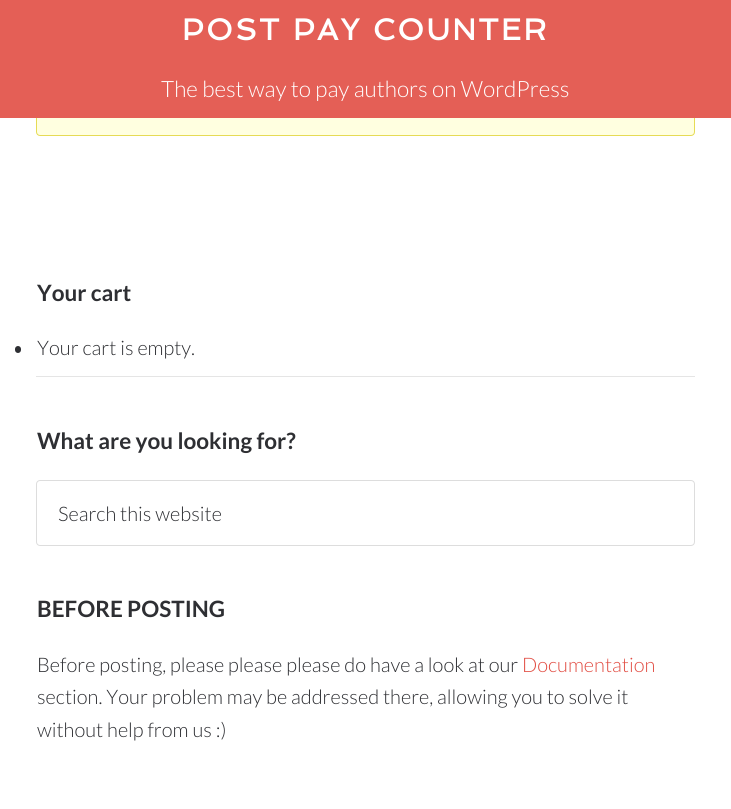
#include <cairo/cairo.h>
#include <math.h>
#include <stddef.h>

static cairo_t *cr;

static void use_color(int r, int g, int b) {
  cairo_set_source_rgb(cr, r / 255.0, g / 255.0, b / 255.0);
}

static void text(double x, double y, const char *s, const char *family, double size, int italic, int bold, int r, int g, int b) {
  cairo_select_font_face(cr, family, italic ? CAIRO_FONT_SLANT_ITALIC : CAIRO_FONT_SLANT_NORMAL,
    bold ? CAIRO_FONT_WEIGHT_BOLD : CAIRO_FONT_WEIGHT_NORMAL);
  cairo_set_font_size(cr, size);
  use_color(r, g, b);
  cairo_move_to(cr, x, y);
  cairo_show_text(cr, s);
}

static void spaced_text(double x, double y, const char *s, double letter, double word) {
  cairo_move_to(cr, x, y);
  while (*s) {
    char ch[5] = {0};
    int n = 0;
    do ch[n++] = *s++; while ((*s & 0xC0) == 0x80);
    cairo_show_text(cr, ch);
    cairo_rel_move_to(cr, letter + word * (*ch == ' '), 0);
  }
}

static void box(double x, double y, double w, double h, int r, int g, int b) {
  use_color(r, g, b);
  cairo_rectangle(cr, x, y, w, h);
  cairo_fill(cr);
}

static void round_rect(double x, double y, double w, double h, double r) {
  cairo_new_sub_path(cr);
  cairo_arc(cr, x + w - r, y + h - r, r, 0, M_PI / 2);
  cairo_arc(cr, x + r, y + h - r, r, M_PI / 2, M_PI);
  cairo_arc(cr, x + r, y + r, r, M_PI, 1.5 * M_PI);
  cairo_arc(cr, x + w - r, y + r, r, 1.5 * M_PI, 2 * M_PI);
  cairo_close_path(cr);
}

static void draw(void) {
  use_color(255, 255, 255);
  cairo_paint(cr);
  use_color(255, 255, 224);
  round_rect(36.5, 93.5, 658, 42, 3.5);
  cairo_fill_preserve(cr);
  use_color(230, 219, 85);
  cairo_set_line_width(cr, 1);
  cairo_stroke(cr);
  box(0, 0, 731, 118, 228, 95, 86);
  box(36, 376, 659, 1, 229, 229, 229);
  use_color(46, 47, 51);
  round_rect(15, 346, 6, 7, 3);
  cairo_fill(cr);
  round_rect(36.5, 480.5, 658, 65, 3.5);
  use_color(221, 221, 221);
  cairo_stroke(cr);
  cairo_select_font_face(cr, "Spinnaker", CAIRO_FONT_SLANT_NORMAL, CAIRO_FONT_WEIGHT_BOLD);
  cairo_set_font_size(cr, 30);
  use_color(255, 255, 255);
  spaced_text(182, 40, "POST PAY COUNTER", 2.5, 0);
  text(161, 97, "The best way to pay authors on WordPress", "Lato Light", 22.5, 0, 0, 255, 255, 255);
  text(37, 301, "Your cart", "Lato", 22.5, 0, 1, 46, 47, 51);
  text(37, 355, "Your cart is empty.", "Lato Light", 20, 0, 0, 46, 47, 51);
  text(37, 449, "What are you looking for?", "Lato", 22.5, 0, 1, 46, 47, 51);
  text(58, 521, "Search this website", "Lato Light", 20, 0, 0, 46, 47, 51);
  text(37, 617, "BEFORE POSTING", "Lato", 22.5, 0, 1, 46, 47, 51);
  text(37, 672, "Before posting, please please please do have a look at our", "Lato Light", 20, 0, 0, 46, 47, 51);
  text(522, 672, "Documentation", "Lato Light", 20, 0, 0, 225, 77, 67);
  text(37, 704, "section. Your problem may be addressed there, allowing you to solve it", "Lato Light", 20, 0, 0, 46, 47, 51);
  text(37, 737, "without help from us :)", "Lato Light", 20, 0, 0, 46, 47, 51);
}

int main(void) {
  cairo_surface_t *surface = cairo_image_surface_create(CAIRO_FORMAT_RGB24, 731, 809);
  cr = cairo_create(surface);
  cairo_font_options_t *options = cairo_font_options_create();
  cairo_font_options_set_hint_metrics(options, CAIRO_HINT_METRICS_OFF);
  cairo_font_options_set_hint_style(options, CAIRO_HINT_STYLE_NONE);
  cairo_set_font_options(cr, options);
  cairo_set_miter_limit(cr, 4);
  draw();
  cairo_surface_write_to_png(surface, "out.png");
  cairo_font_options_destroy(options);
  cairo_destroy(cr);
  cairo_surface_destroy(surface);
  return 0;
}
